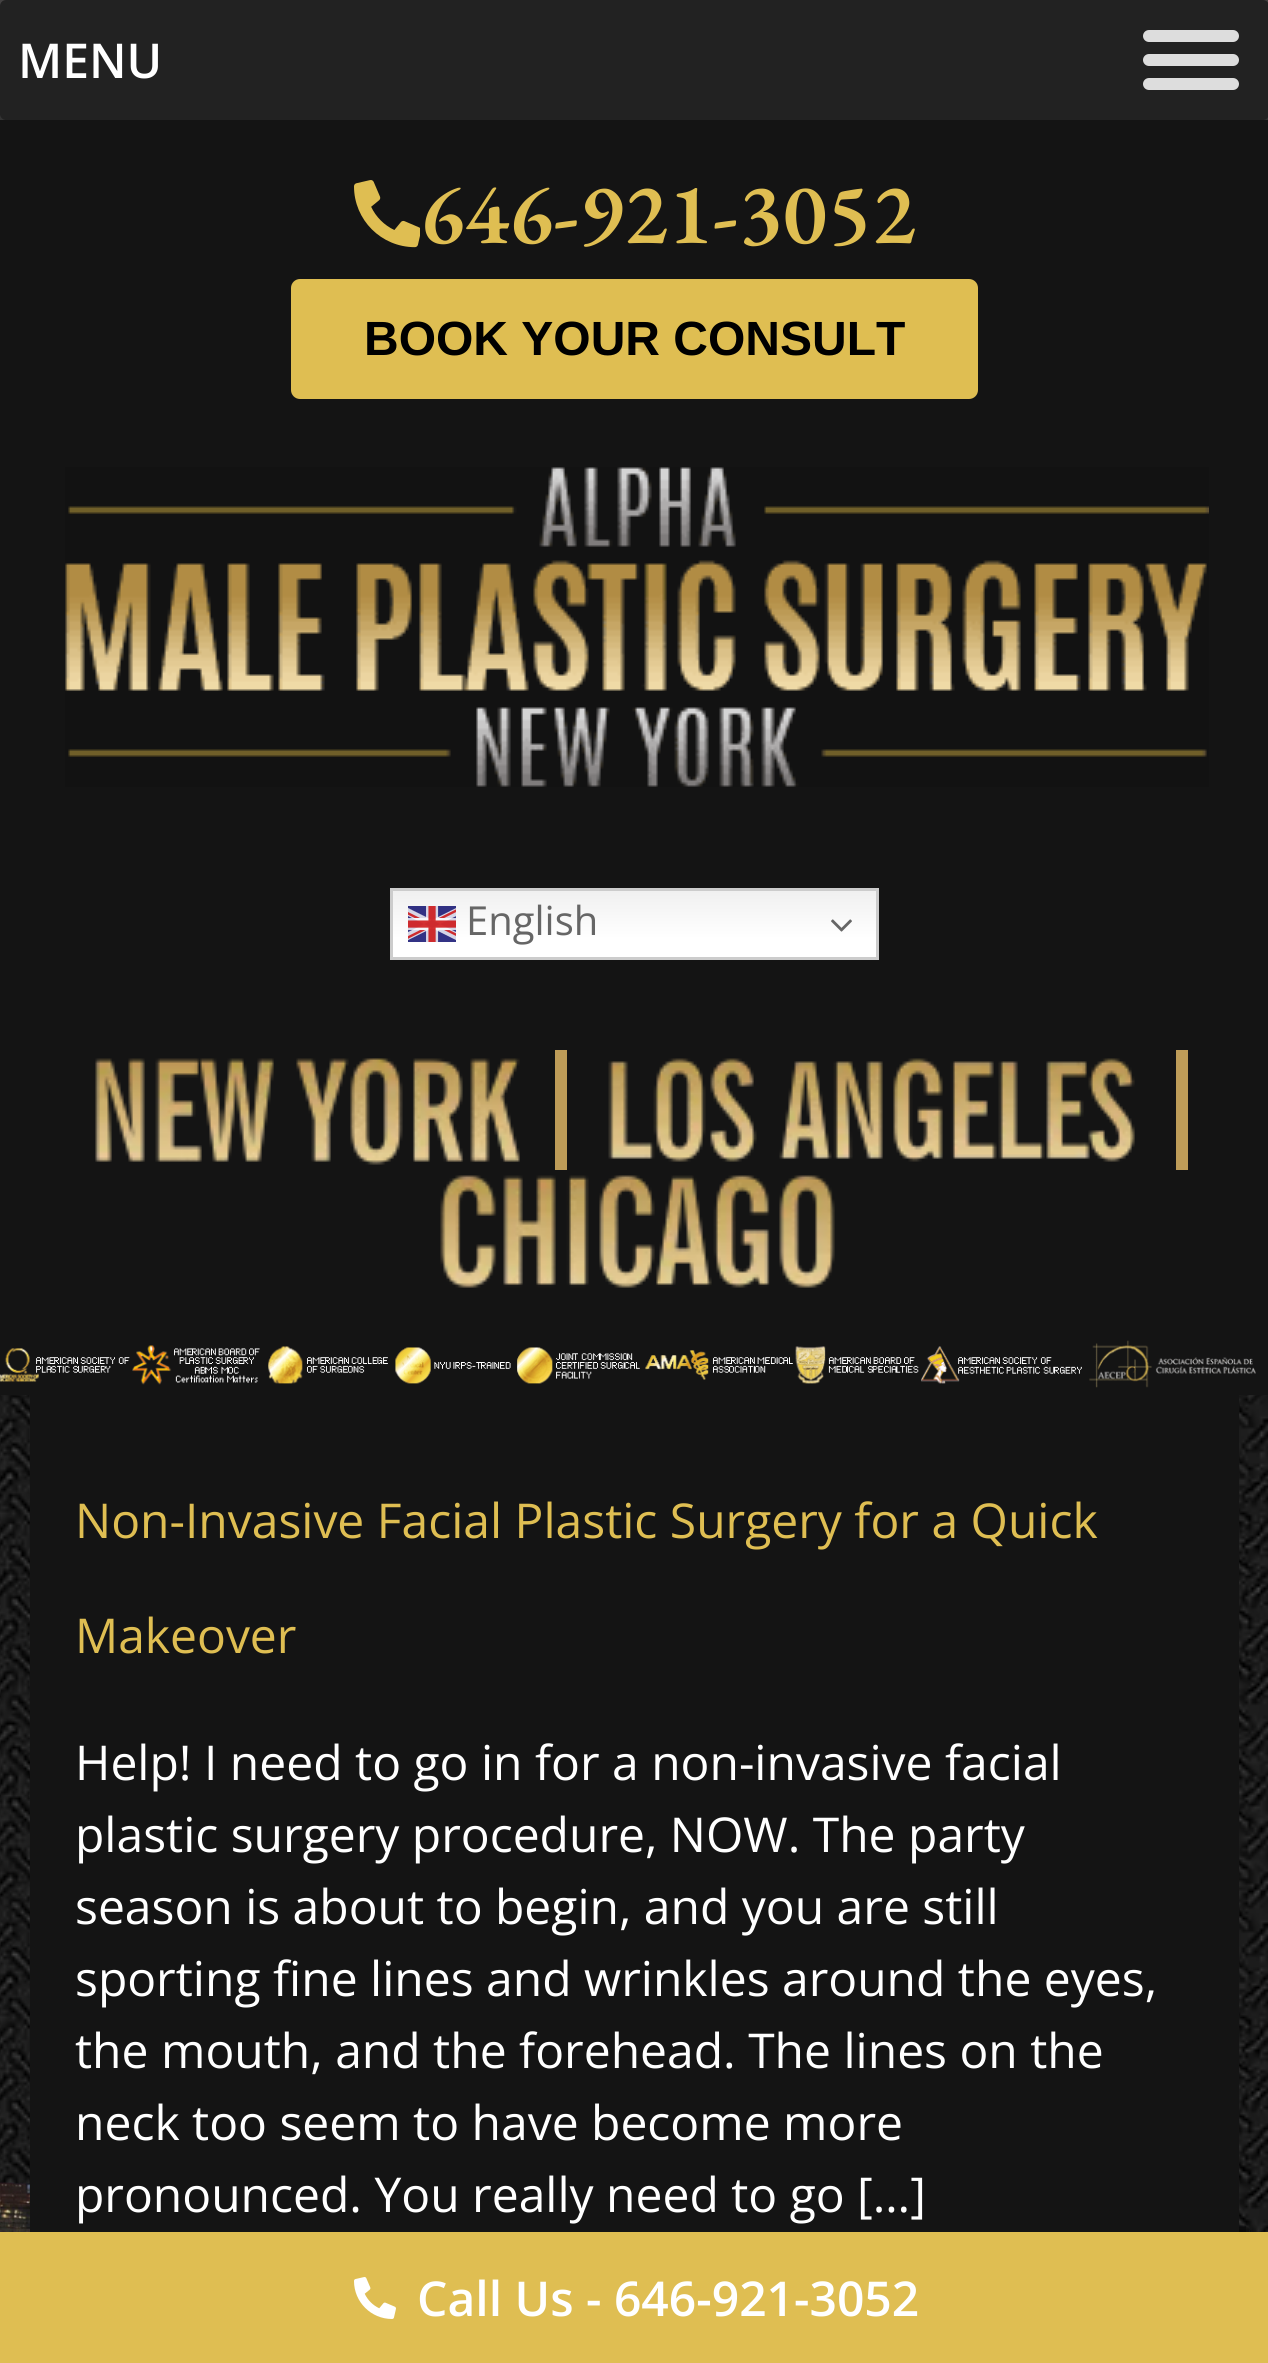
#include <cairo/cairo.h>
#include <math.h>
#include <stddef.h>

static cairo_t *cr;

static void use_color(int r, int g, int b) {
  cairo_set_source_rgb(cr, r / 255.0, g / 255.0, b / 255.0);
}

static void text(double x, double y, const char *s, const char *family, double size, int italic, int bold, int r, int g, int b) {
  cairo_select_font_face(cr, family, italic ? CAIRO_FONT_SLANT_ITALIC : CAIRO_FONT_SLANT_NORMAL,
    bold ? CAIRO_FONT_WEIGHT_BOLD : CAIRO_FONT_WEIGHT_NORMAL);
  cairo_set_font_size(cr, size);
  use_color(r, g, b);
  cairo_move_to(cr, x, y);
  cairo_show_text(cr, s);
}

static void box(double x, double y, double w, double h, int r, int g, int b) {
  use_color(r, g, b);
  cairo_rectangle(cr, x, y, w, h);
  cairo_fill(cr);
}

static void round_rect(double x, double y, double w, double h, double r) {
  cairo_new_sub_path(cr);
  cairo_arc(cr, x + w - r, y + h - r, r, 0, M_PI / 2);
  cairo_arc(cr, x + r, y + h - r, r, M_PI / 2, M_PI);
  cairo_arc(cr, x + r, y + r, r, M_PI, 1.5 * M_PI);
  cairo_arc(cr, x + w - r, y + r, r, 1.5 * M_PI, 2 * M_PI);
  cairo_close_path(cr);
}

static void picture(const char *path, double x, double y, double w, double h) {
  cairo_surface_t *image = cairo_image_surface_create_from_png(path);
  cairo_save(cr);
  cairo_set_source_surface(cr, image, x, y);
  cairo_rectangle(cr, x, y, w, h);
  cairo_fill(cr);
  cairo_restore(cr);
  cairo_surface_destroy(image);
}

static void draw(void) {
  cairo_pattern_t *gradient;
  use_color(255, 255, 255);
  cairo_paint(cr);
  picture("img_01.png", 0, 1395, 1268, 837);
  picture("img_02.png", 0, 0, 1268, 120);
  use_color(34, 34, 34);
  round_rect(0, 0, 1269, 120, 6);
  cairo_fill(cr);
  use_color(221, 221, 221);
  round_rect(1143, 30, 96, 12, 6);
  cairo_fill(cr);
  round_rect(1143, 54, 96, 12, 6);
  cairo_fill(cr);
  round_rect(1143, 78, 96, 12, 6);
  cairo_fill(cr);
  box(0, 120, 1268, 1275, 20, 20, 20);
  picture("img_03.png", 354, 180, 66, 68);
  use_color(223, 190, 82);
  round_rect(291, 279, 687, 120, 9);
  cairo_fill(cr);
  picture("img_04.png", 65, 467, 1144, 320);
  gradient = cairo_pattern_create_linear(635, 888, 635, 960);
  cairo_pattern_add_color_stop_rgba(gradient, 0, 0.937, 0.937, 0.937, 1);
  cairo_pattern_add_color_stop_rgba(gradient, 0.7, 1, 1, 1, 1);
  cairo_set_source(cr, gradient);
  cairo_pattern_destroy(gradient);
  cairo_rectangle(cr, 393, 891, 483, 66);
  cairo_fill(cr);
  cairo_rectangle(cr, 391.5, 889.5, 486, 69);
  use_color(204, 204, 204);
  cairo_set_line_width(cr, 3);
  cairo_stroke(cr);
  picture("img_05.png", 408, 906, 48, 36);
  picture("img_06.png", 831, 919, 21, 13);
  box(555, 1050, 12, 120, 190, 156, 88);
  picture("img_07.png", 95, 1058, 425, 107);
  box(1176, 1050, 12, 120, 190, 156, 88);
  picture("img_08.png", 608, 1058, 527, 104);
  picture("img_09.png", 440, 1175, 395, 113);
  picture("img_10.png", 0, 1340, 1256, 48);
  picture("img_11.png", 0, 2181, 1252, 51);
  box(30, 1395, 1209, 837, 20, 20, 20);
  box(0, 2232, 1268, 131, 223, 190, 82);
  picture("img_12.png", 354, 2277, 42, 42);
  text(18, 78, "MENU", "Open Sans SemiBold", 48, 0, 0, 255, 255, 255);
  text(420, 243, "646-921-3052", "EB Garamond SemiBold", 86.5, 0, 0, 223, 190, 82);
  text(364, 355, "BOOK YOUR CONSULT", "Liberation Sans", 48, 0, 1, 0, 0, 0);
  text(466, 935, "English", "Open Sans", 40, 0, 0, 102, 102, 102);
  text(75, 1538, "Non-Invasive Facial Plastic Surgery for a Quick", "Open Sans", 48, 0, 0, 223, 190, 82);
  text(75, 1653, "Makeover", "Open Sans", 48, 0, 0, 223, 190, 82);
  text(75, 1780, "Help! I need to go in for a non-invasive facial", "Open Sans", 48, 0, 0, 255, 255, 255);
  text(75, 1852, "plastic surgery procedure, NOW. The party", "Open Sans", 48, 0, 0, 255, 255, 255);
  text(75, 1924, "season is about to begin, and you are still", "Open Sans", 48, 0, 0, 255, 255, 255);
  text(75, 1996, "sporting fine lines and wrinkles around the eyes,", "Open Sans", 48, 0, 0, 255, 255, 255);
  text(75, 2068, "the mouth, and the forehead. The lines on the", "Open Sans", 48, 0, 0, 255, 255, 255);
  text(75, 2140, "neck too seem to have become more", "Open Sans", 48, 0, 0, 255, 255, 255);
  text(75, 2212, "pronounced. You really need to go […]", "Open Sans", 48, 0, 0, 255, 255, 255);
  text(417, 2316, "Call Us - 646-921-3052", "Open Sans SemiBold", 48, 0, 0, 255, 255, 255);
}

int main(void) {
  cairo_surface_t *surface = cairo_image_surface_create(CAIRO_FORMAT_RGB24, 1268, 2363);
  cr = cairo_create(surface);
  cairo_font_options_t *options = cairo_font_options_create();
  cairo_font_options_set_hint_metrics(options, CAIRO_HINT_METRICS_OFF);
  cairo_font_options_set_hint_style(options, CAIRO_HINT_STYLE_NONE);
  cairo_set_font_options(cr, options);
  cairo_set_miter_limit(cr, 4);
  draw();
  cairo_surface_write_to_png(surface, "out.png");
  cairo_font_options_destroy(options);
  cairo_destroy(cr);
  cairo_surface_destroy(surface);
  return 0;
}
